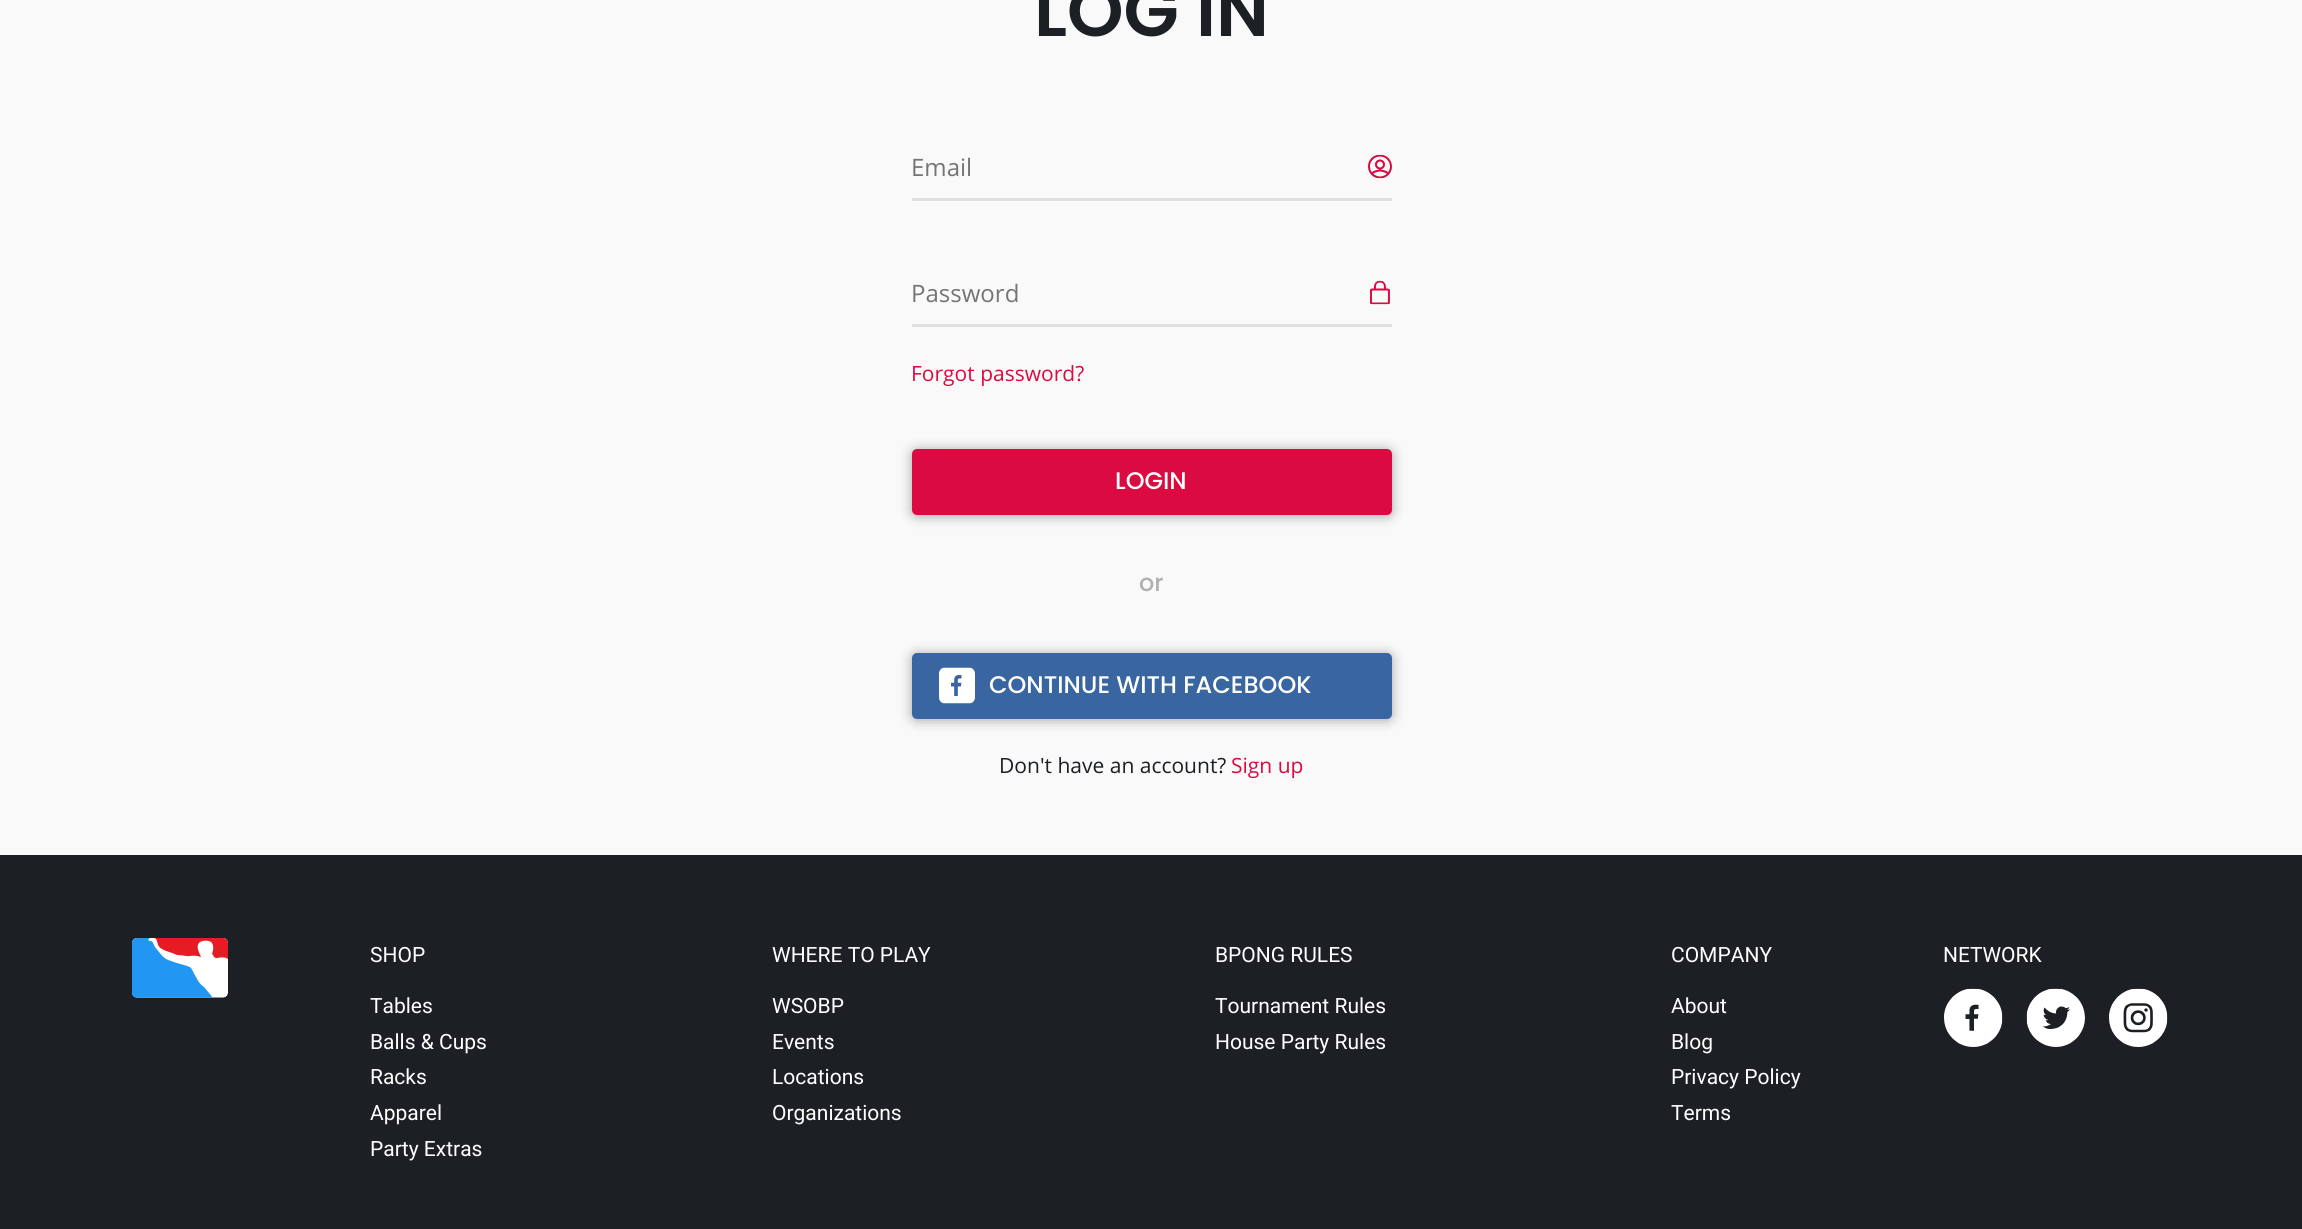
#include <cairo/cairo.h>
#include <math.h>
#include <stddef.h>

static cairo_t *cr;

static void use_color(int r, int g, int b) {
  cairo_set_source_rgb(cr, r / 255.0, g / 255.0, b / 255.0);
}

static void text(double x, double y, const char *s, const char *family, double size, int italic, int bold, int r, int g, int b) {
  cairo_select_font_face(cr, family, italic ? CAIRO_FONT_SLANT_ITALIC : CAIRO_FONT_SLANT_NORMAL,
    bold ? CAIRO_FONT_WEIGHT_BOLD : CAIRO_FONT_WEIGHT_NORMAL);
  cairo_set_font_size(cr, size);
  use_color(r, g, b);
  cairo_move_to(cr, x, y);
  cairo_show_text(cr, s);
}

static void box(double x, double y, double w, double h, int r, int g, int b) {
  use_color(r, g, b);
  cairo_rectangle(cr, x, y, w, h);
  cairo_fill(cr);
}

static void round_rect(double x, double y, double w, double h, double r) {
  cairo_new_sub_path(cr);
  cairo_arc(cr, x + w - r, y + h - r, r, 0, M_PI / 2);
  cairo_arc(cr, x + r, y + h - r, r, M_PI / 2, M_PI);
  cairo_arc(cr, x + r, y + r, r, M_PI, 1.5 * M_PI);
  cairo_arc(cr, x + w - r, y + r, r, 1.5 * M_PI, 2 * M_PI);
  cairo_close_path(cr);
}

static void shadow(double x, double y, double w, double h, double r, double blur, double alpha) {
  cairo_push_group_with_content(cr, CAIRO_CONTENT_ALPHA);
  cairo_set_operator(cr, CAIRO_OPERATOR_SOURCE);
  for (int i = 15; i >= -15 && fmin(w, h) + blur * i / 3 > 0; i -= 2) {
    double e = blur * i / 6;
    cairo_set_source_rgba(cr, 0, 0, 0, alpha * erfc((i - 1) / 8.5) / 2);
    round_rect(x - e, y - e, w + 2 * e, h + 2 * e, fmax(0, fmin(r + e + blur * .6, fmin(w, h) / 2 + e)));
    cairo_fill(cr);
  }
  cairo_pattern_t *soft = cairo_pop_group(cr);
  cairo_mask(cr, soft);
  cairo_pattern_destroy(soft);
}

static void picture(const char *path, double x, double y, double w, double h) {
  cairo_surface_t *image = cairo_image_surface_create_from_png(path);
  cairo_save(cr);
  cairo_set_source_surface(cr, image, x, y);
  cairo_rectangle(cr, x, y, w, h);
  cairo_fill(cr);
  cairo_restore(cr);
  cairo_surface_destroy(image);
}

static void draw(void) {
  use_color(249, 249, 249);
  cairo_paint(cr);
  picture("img_01.png", 1368, 154, 24, 25);
  box(912, 198, 480, 3, 224, 224, 224);
  picture("img_02.png", 1370, 280, 20, 25);
  box(912, 324, 480, 3, 224, 224, 224);
  use_color(0, 1, 1);
  shadow(912, 450, 480, 66, 5, 6, 0.35);
  use_color(219, 10, 64);
  round_rect(913.5, 450.5, 477, 63, 3.5);
  cairo_fill_preserve(cr);
  cairo_set_line_width(cr, 3);
  cairo_stroke(cr);
  use_color(0, 1, 1);
  shadow(912, 654, 480, 66, 5, 6, 0.35);
  use_color(57, 102, 160);
  round_rect(913.5, 654.5, 477, 63, 3.5);
  cairo_fill_preserve(cr);
  cairo_stroke(cr);
  picture("img_03.png", 939, 667, 36, 37);
  box(0, 855, 2302, 374, 28, 31, 36);
  picture("img_04.png", 132, 938, 96, 60);
  picture("img_05.png", 1944, 988, 59, 59);
  picture("img_06.png", 2026, 988, 59, 59);
  picture("img_07.png", 2109, 988, 59, 59);
  text(1034, 36, "LOG IN", "Poppins SemiBold", 72, 0, 0, 28, 31, 36);
  text(911, 176, "Email", "Open Sans", 24, 0, 0, 117, 117, 117);
  text(911, 302, "Password", "Open Sans", 24, 0, 0, 117, 117, 117);
  text(911, 381, "Forgot password?", "Open Sans", 21, 0, 0, 219, 10, 64);
  text(1115, 489, "LOGIN", "Poppins Medium", 24, 0, 0, 255, 255, 255);
  text(1139, 591, "or", "Poppins Medium", 24, 0, 0, 176, 176, 176);
  text(989, 693, "CONTINUE WITH FACEBOOK", "Poppins Medium", 24, 0, 0, 255, 255, 255);
  text(999, 773, "Don't have an account?", "Open Sans", 21, 0, 0, 28, 31, 36);
  text(1231, 773, "Sign up", "Open Sans", 21, 0, 0, 219, 10, 64);
  text(370, 962, "SHOP", "Roboto", 21, 0, 0, 255, 255, 255);
  text(370, 1013, "Tables", "Roboto", 21, 0, 0, 255, 255, 255);
  text(370, 1049, "Balls & Cups", "Roboto", 21, 0, 0, 255, 255, 255);
  text(370, 1084, "Racks", "Roboto", 21, 0, 0, 255, 255, 255);
  text(370, 1120, "Apparel", "Roboto", 21, 0, 0, 255, 255, 255);
  text(370, 1156, "Party Extras", "Roboto", 21, 0, 0, 255, 255, 255);
  text(772, 962, "WHERE TO PLAY", "Roboto", 21, 0, 0, 255, 255, 255);
  text(772, 1013, "WSOBP", "Roboto", 21, 0, 0, 255, 255, 255);
  text(772, 1049, "Events", "Roboto", 21, 0, 0, 255, 255, 255);
  text(772, 1084, "Locations", "Roboto", 21, 0, 0, 255, 255, 255);
  text(772, 1120, "Organizations", "Roboto", 21, 0, 0, 255, 255, 255);
  text(1215, 962, "BPONG RULES", "Roboto", 21, 0, 0, 255, 255, 255);
  text(1215, 1013, "Tournament Rules", "Roboto", 21, 0, 0, 255, 255, 255);
  text(1215, 1049, "House Party Rules", "Roboto", 21, 0, 0, 255, 255, 255);
  text(1671, 962, "COMPANY", "Roboto", 21, 0, 0, 255, 255, 255);
  text(1671, 1013, "About", "Roboto", 21, 0, 0, 255, 255, 255);
  text(1671, 1049, "Blog", "Roboto", 21, 0, 0, 255, 255, 255);
  text(1671, 1084, "Privacy Policy", "Roboto", 21, 0, 0, 255, 255, 255);
  text(1671, 1120, "Terms", "Roboto", 21, 0, 0, 255, 255, 255);
  text(1943, 962, "NETWORK", "Roboto", 21, 0, 0, 255, 255, 255);
}

int main(void) {
  cairo_surface_t *surface = cairo_image_surface_create(CAIRO_FORMAT_RGB24, 2302, 1229);
  cr = cairo_create(surface);
  cairo_font_options_t *options = cairo_font_options_create();
  cairo_font_options_set_hint_metrics(options, CAIRO_HINT_METRICS_OFF);
  cairo_font_options_set_hint_style(options, CAIRO_HINT_STYLE_NONE);
  cairo_set_font_options(cr, options);
  cairo_set_miter_limit(cr, 4);
  draw();
  cairo_surface_write_to_png(surface, "out.png");
  cairo_font_options_destroy(options);
  cairo_destroy(cr);
  cairo_surface_destroy(surface);
  return 0;
}
